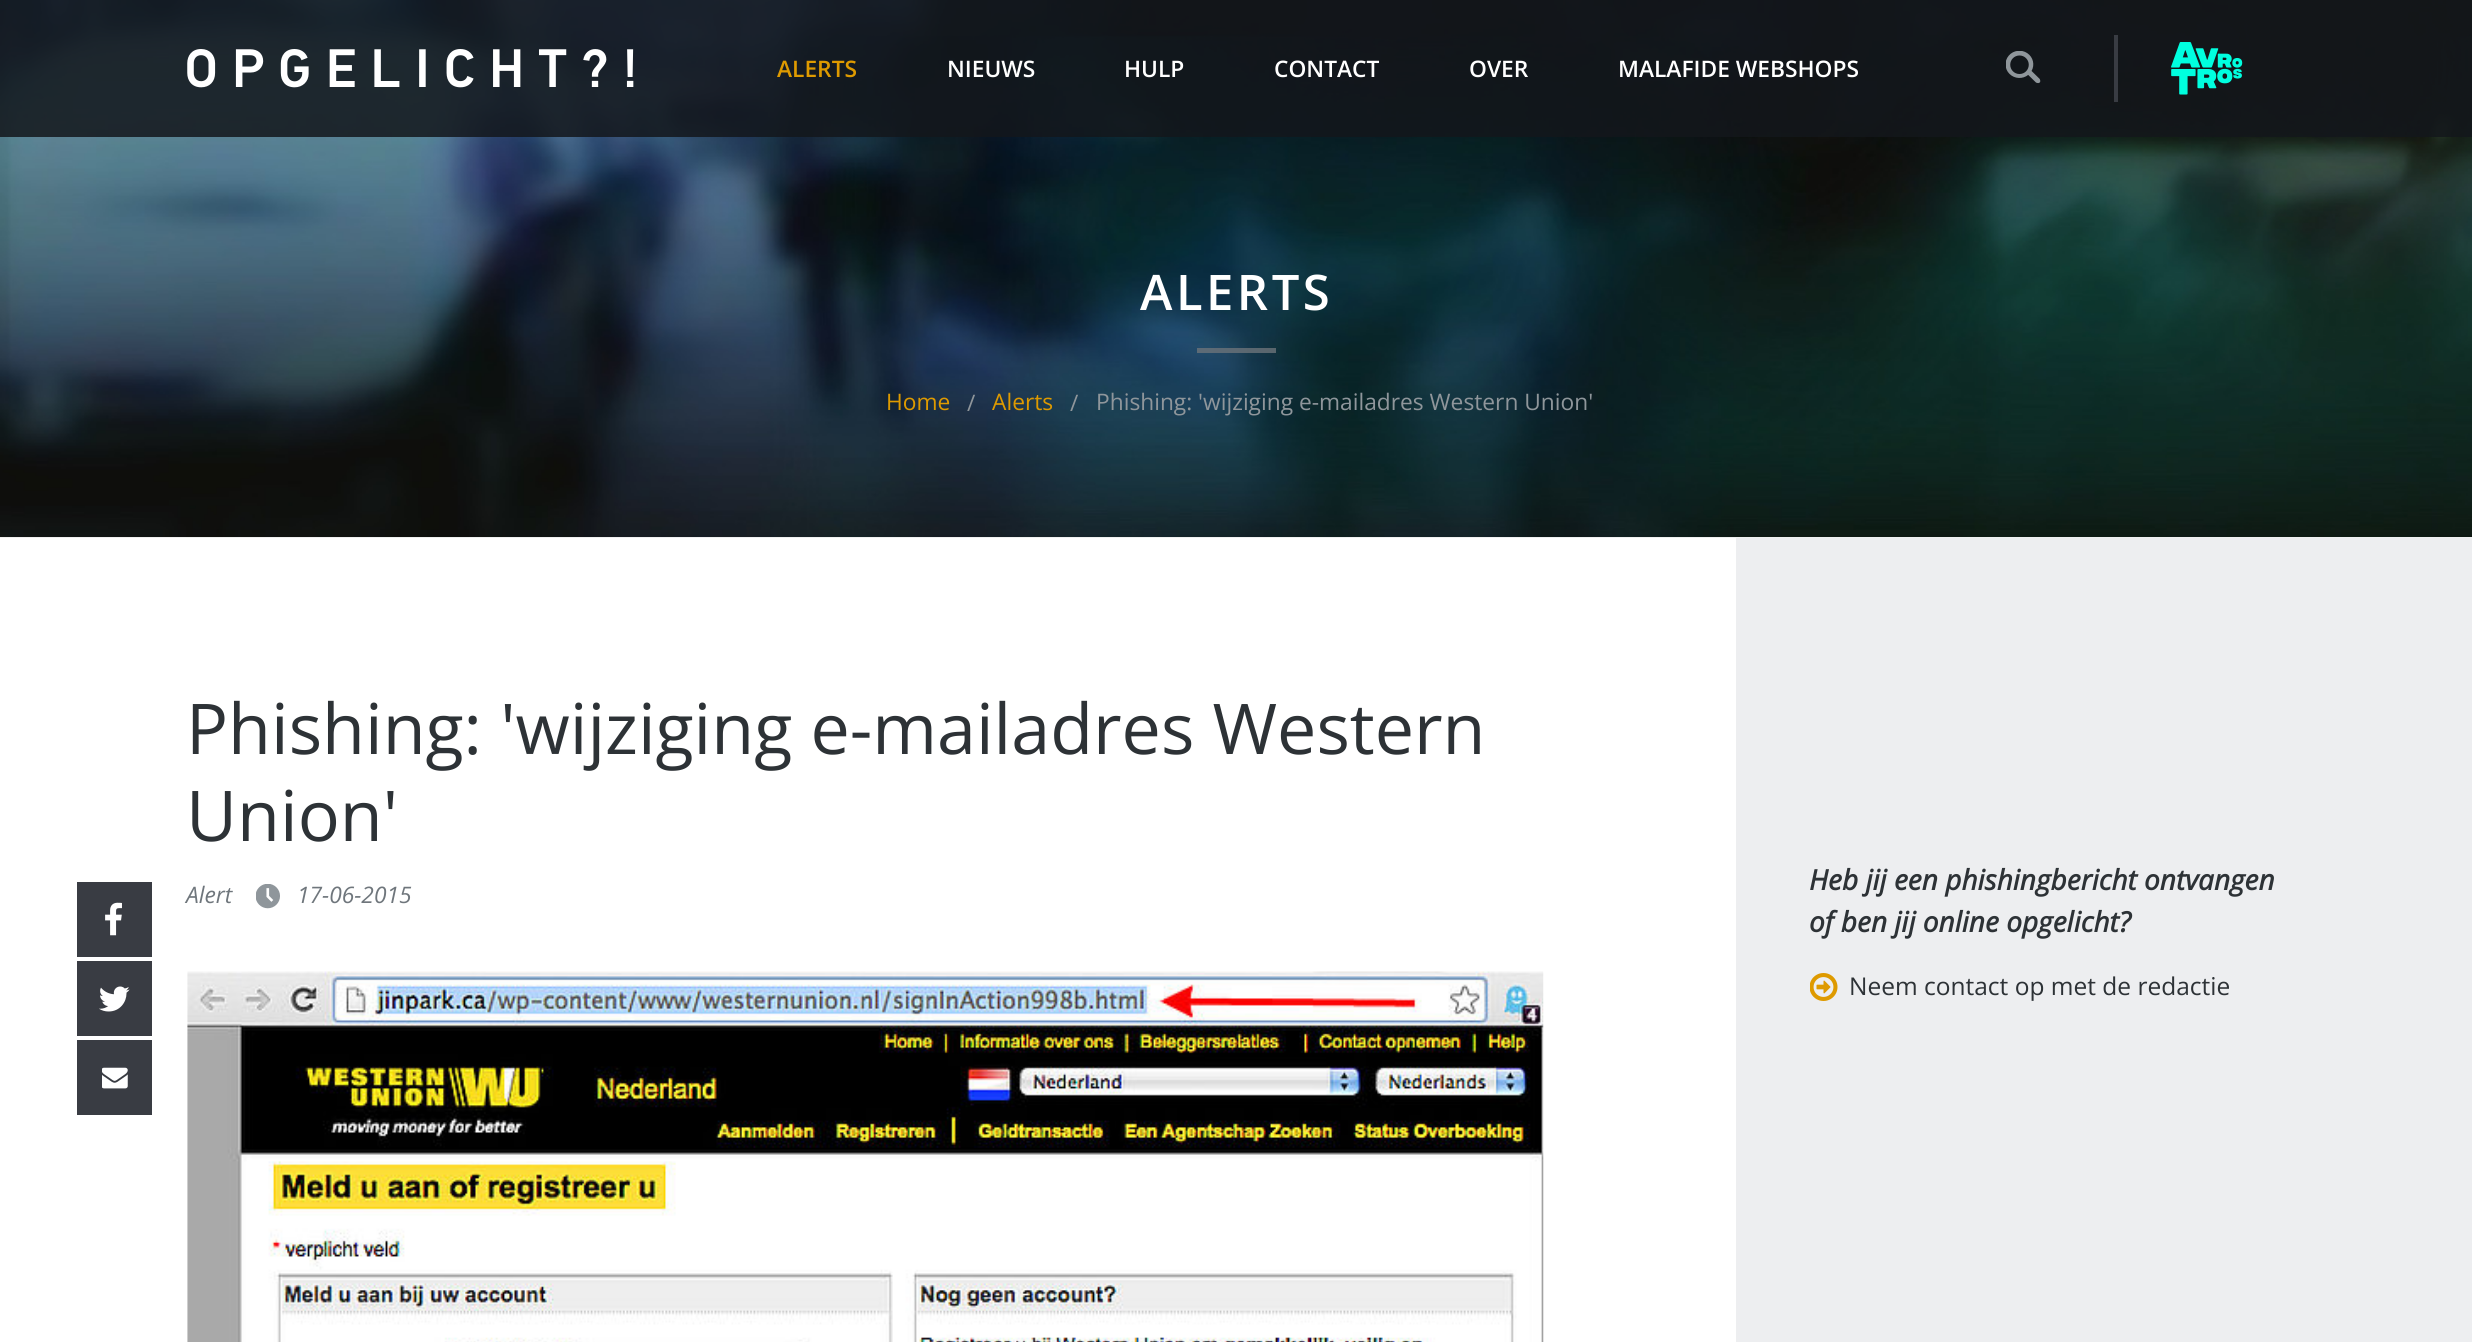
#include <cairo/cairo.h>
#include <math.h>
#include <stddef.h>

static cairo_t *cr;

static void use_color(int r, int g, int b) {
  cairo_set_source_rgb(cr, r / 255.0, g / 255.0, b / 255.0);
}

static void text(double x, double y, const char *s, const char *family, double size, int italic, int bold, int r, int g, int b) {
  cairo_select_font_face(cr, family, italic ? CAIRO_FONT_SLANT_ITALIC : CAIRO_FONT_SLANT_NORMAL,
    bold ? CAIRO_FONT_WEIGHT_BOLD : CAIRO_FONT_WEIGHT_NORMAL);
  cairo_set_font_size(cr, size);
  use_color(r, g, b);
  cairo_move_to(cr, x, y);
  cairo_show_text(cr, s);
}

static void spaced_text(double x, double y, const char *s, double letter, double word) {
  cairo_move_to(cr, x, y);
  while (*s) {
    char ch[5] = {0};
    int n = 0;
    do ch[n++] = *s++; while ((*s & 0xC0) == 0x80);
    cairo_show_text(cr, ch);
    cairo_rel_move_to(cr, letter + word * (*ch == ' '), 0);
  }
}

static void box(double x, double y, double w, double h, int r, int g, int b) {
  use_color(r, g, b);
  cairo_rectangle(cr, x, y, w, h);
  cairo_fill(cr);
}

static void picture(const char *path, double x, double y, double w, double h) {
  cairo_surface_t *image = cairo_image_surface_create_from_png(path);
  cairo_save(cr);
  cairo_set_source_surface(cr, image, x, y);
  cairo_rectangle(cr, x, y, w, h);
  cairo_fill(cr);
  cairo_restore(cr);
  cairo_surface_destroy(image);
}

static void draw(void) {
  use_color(255, 255, 255);
  cairo_paint(cr);
  picture("img_04.png", 0, 0, 2472, 538);
  cairo_set_source_rgba(cr, 0.078, 0.09, 0.106, 0.85);
  cairo_rectangle(cr, 0, 0, 2472, 137);
  cairo_fill(cr);
  picture("img_01.png", 187, 49, 447, 39);
  picture("img_02.png", 2006, 51, 35, 33);
  box(2114, 35, 4, 67, 57, 60, 67);
  picture("img_03.png", 2171, 42, 72, 53);
  cairo_set_source_rgba(cr, 0.42, 0.451, 0.475, 0.8);
  cairo_rectangle(cr, 1197, 348, 79, 5);
  cairo_fill(cr);
  box(77, 882, 75, 75, 57, 60, 67);
  picture("img_05.png", 105, 902, 17, 34);
  box(77, 961, 75, 75, 57, 60, 67);
  picture("img_06.png", 99, 986, 31, 26);
  box(77, 1040, 75, 75, 57, 60, 67);
  picture("img_07.png", 102, 1067, 26, 22);
  picture("img_08.png", 256, 884, 24, 25);
  picture("img_09.png", 187, 971, 1357, 371);
  box(1736, 538, 736, 804, 237, 238, 240);
  picture("img_10.png", 1810, 973, 28, 28);
  text(777, 77, "ALERTS", "Open Sans SemiBold", 22.75, 0, 0, 222, 154, 0);
  text(947, 77, "NIEUWS", "Open Sans SemiBold", 22.75, 0, 0, 255, 255, 255);
  text(1124, 77, "HULP", "Open Sans SemiBold", 22.75, 0, 0, 255, 255, 255);
  text(1274, 77, "CONTACT", "Open Sans SemiBold", 22.75, 0, 0, 255, 255, 255);
  text(1469, 77, "OVER", "Open Sans SemiBold", 22.75, 0, 0, 255, 255, 255);
  text(1618, 77, "MALAFIDE WEBSHOPS", "Open Sans SemiBold", 22.75, 0, 0, 255, 255, 255);
  cairo_set_font_size(cr, 49);
  spaced_text(1140, 310, "ALERTS", 3.5, 0);
  text(886, 410, "Home", "Open Sans", 22.75, 0, 0, 222, 154, 0);
  text(967, 411, "/", "Open Sans", 22.75, 0, 0, 143, 150, 155);
  text(992, 410, "Alerts", "Open Sans", 22.75, 0, 0, 222, 154, 0);
  text(1070, 411, "/", "Open Sans", 22.75, 0, 0, 143, 150, 155);
  text(1096, 410, "Phishing: 'wijziging e-mailadres Western Union'", "Open Sans", 22.75, 0, 0, 143, 150, 155);
  text(186, 754, "Phishing: 'wijziging e-mailadres Western", "Open Sans", 70, 0, 0, 45, 50, 54);
  text(186, 841, "Union'", "Open Sans", 70, 0, 0, 45, 50, 54);
  text(186, 903, "Alert", "Open Sans", 22.75, 1, 0, 111, 118, 124);
  text(297, 903, "17-06-2015", "Open Sans", 22.75, 1, 0, 111, 118, 124);
  text(1809, 890, "Heb jij een phishingbericht ontvangen", "Open Sans", 28, 1, 1, 45, 50, 54);
  text(1809, 932, "of ben jij online opgelicht?", "Open Sans", 28, 1, 1, 45, 50, 54);
  text(1849, 995, "Neem contact op met de redactie", "Open Sans", 24.5, 0, 0, 45, 50, 54);
}

int main(void) {
  cairo_surface_t *surface = cairo_image_surface_create(CAIRO_FORMAT_RGB24, 2472, 1342);
  cr = cairo_create(surface);
  cairo_font_options_t *options = cairo_font_options_create();
  cairo_font_options_set_hint_metrics(options, CAIRO_HINT_METRICS_OFF);
  cairo_font_options_set_hint_style(options, CAIRO_HINT_STYLE_NONE);
  cairo_set_font_options(cr, options);
  cairo_set_miter_limit(cr, 4);
  draw();
  cairo_surface_write_to_png(surface, "out.png");
  cairo_font_options_destroy(options);
  cairo_destroy(cr);
  cairo_surface_destroy(surface);
  return 0;
}
